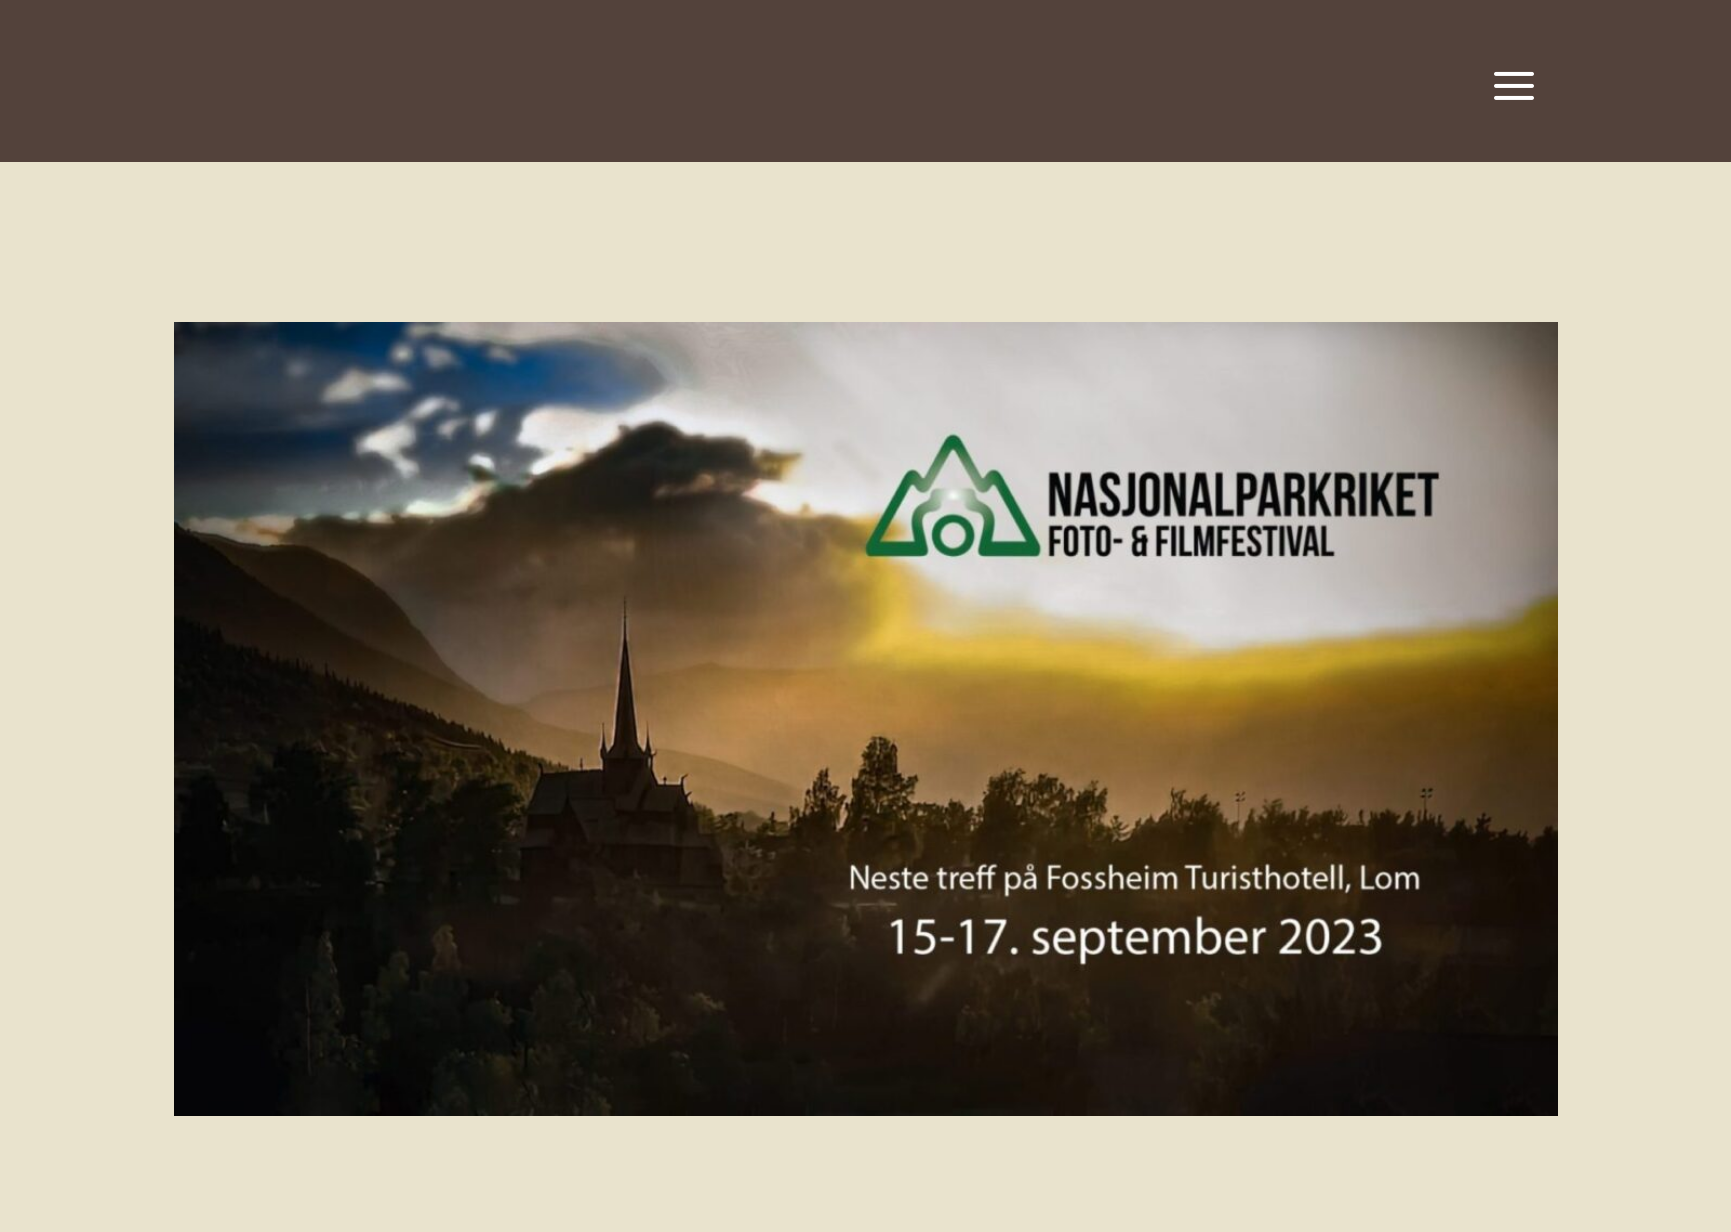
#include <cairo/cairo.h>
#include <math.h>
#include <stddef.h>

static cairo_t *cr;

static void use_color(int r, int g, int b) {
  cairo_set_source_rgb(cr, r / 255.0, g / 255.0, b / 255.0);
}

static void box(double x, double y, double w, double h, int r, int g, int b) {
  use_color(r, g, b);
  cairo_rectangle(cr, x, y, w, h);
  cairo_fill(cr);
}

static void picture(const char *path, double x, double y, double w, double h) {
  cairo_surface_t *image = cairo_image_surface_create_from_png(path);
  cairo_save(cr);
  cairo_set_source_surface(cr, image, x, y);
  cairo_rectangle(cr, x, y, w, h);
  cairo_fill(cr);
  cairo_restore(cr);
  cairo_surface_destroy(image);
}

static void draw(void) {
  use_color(83, 66, 59);
  cairo_paint(cr);
  picture("img_01.png", 1494, 71, 40, 29);
  box(0, 162, 1731, 1070, 233, 227, 205);
  picture("img_02.png", 174, 322, 1384, 794);
}

int main(void) {
  cairo_surface_t *surface = cairo_image_surface_create(CAIRO_FORMAT_RGB24, 1731, 1232);
  cr = cairo_create(surface);
  cairo_font_options_t *options = cairo_font_options_create();
  cairo_font_options_set_hint_metrics(options, CAIRO_HINT_METRICS_OFF);
  cairo_font_options_set_hint_style(options, CAIRO_HINT_STYLE_NONE);
  cairo_set_font_options(cr, options);
  cairo_set_miter_limit(cr, 4);
  draw();
  cairo_surface_write_to_png(surface, "out.png");
  cairo_font_options_destroy(options);
  cairo_destroy(cr);
  cairo_surface_destroy(surface);
  return 0;
}
